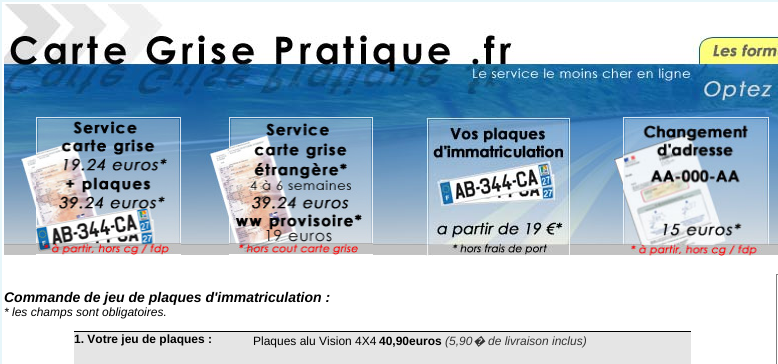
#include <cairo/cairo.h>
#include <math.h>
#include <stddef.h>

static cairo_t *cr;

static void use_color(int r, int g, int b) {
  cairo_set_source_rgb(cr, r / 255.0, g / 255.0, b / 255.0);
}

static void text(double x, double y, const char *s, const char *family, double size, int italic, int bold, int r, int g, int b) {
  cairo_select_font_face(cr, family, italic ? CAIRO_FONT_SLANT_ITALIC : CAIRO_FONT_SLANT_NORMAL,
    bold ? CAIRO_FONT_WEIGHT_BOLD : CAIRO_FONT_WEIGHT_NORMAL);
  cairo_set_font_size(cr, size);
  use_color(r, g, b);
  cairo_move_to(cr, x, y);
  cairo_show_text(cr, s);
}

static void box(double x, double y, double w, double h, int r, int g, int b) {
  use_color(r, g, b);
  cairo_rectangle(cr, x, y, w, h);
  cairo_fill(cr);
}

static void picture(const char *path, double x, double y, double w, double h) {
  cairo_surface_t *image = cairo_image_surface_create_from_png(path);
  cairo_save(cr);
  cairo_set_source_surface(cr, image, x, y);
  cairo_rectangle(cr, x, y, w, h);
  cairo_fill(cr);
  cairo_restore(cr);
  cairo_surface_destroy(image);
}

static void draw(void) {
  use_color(255, 255, 255);
  cairo_paint(cr);
  cairo_rectangle(cr, 0.5, 0.5, 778, 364);
  use_color(231, 246, 250);
  cairo_set_line_width(cr, 1);
  cairo_stroke(cr);
  cairo_rectangle(cr, 1.5, 1.5, 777, 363);
  cairo_stroke(cr);
  picture("img_01.png", 4, 4, 774, 113);
  picture("img_02.png", 4, 117, 32, 138);
  picture("img_03.png", 36, 117, 145, 139);
  picture("img_04.png", 181, 117, 48, 138);
  picture("img_05.png", 229, 117, 144, 139);
  picture("img_06.png", 373, 117, 52, 138);
  picture("img_07.png", 425, 117, 146, 139);
  picture("img_08.png", 571, 117, 52, 138);
  picture("img_09.png", 623, 117, 146, 139);
  picture("img_10.png", 769, 117, 9, 138);
  box(74, 332, 617, 32, 229, 229, 229);
  box(74, 331, 617, 1, 0, 0, 0);
  picture("img_11.png", 776, 274, 2, 90);
  text(4, 302, "Commande de jeu de plaques d'immatriculation :", "Liberation Sans", 14, 1, 1, 0, 0, 0);
  text(4, 316, "* les champs sont obligatoires", "Liberation Sans", 12, 1, 0, 0, 0, 0);
  text(163, 316, ".", "Liberation Sans", 12, 0, 0, 0, 0, 0);
  text(74, 343, "1. Votre jeu de plaques :", "Liberation Sans", 12, 0, 1, 0, 0, 0);
  text(253, 345, "Plaques alu Vision 4X4", "Liberation Sans", 12, 0, 0, 0, 0, 0);
  text(379, 345, "40,90euros", "Liberation Sans", 12, 0, 1, 0, 0, 0);
  text(445, 345, "(5,90", "Liberation Sans", 12, 1, 0, 51, 51, 51);
  text(473, 345, "�", "Noto Sans", 12, 1, 0, 51, 51, 51);
  text(488, 345, "de livraison inclus)", "Liberation Sans", 12, 1, 0, 51, 51, 51);
}

int main(void) {
  cairo_surface_t *surface = cairo_image_surface_create(CAIRO_FORMAT_RGB24, 778, 364);
  cr = cairo_create(surface);
  cairo_font_options_t *options = cairo_font_options_create();
  cairo_font_options_set_hint_metrics(options, CAIRO_HINT_METRICS_OFF);
  cairo_font_options_set_hint_style(options, CAIRO_HINT_STYLE_NONE);
  cairo_set_font_options(cr, options);
  cairo_set_miter_limit(cr, 4);
  draw();
  cairo_surface_write_to_png(surface, "out.png");
  cairo_font_options_destroy(options);
  cairo_destroy(cr);
  cairo_surface_destroy(surface);
  return 0;
}
